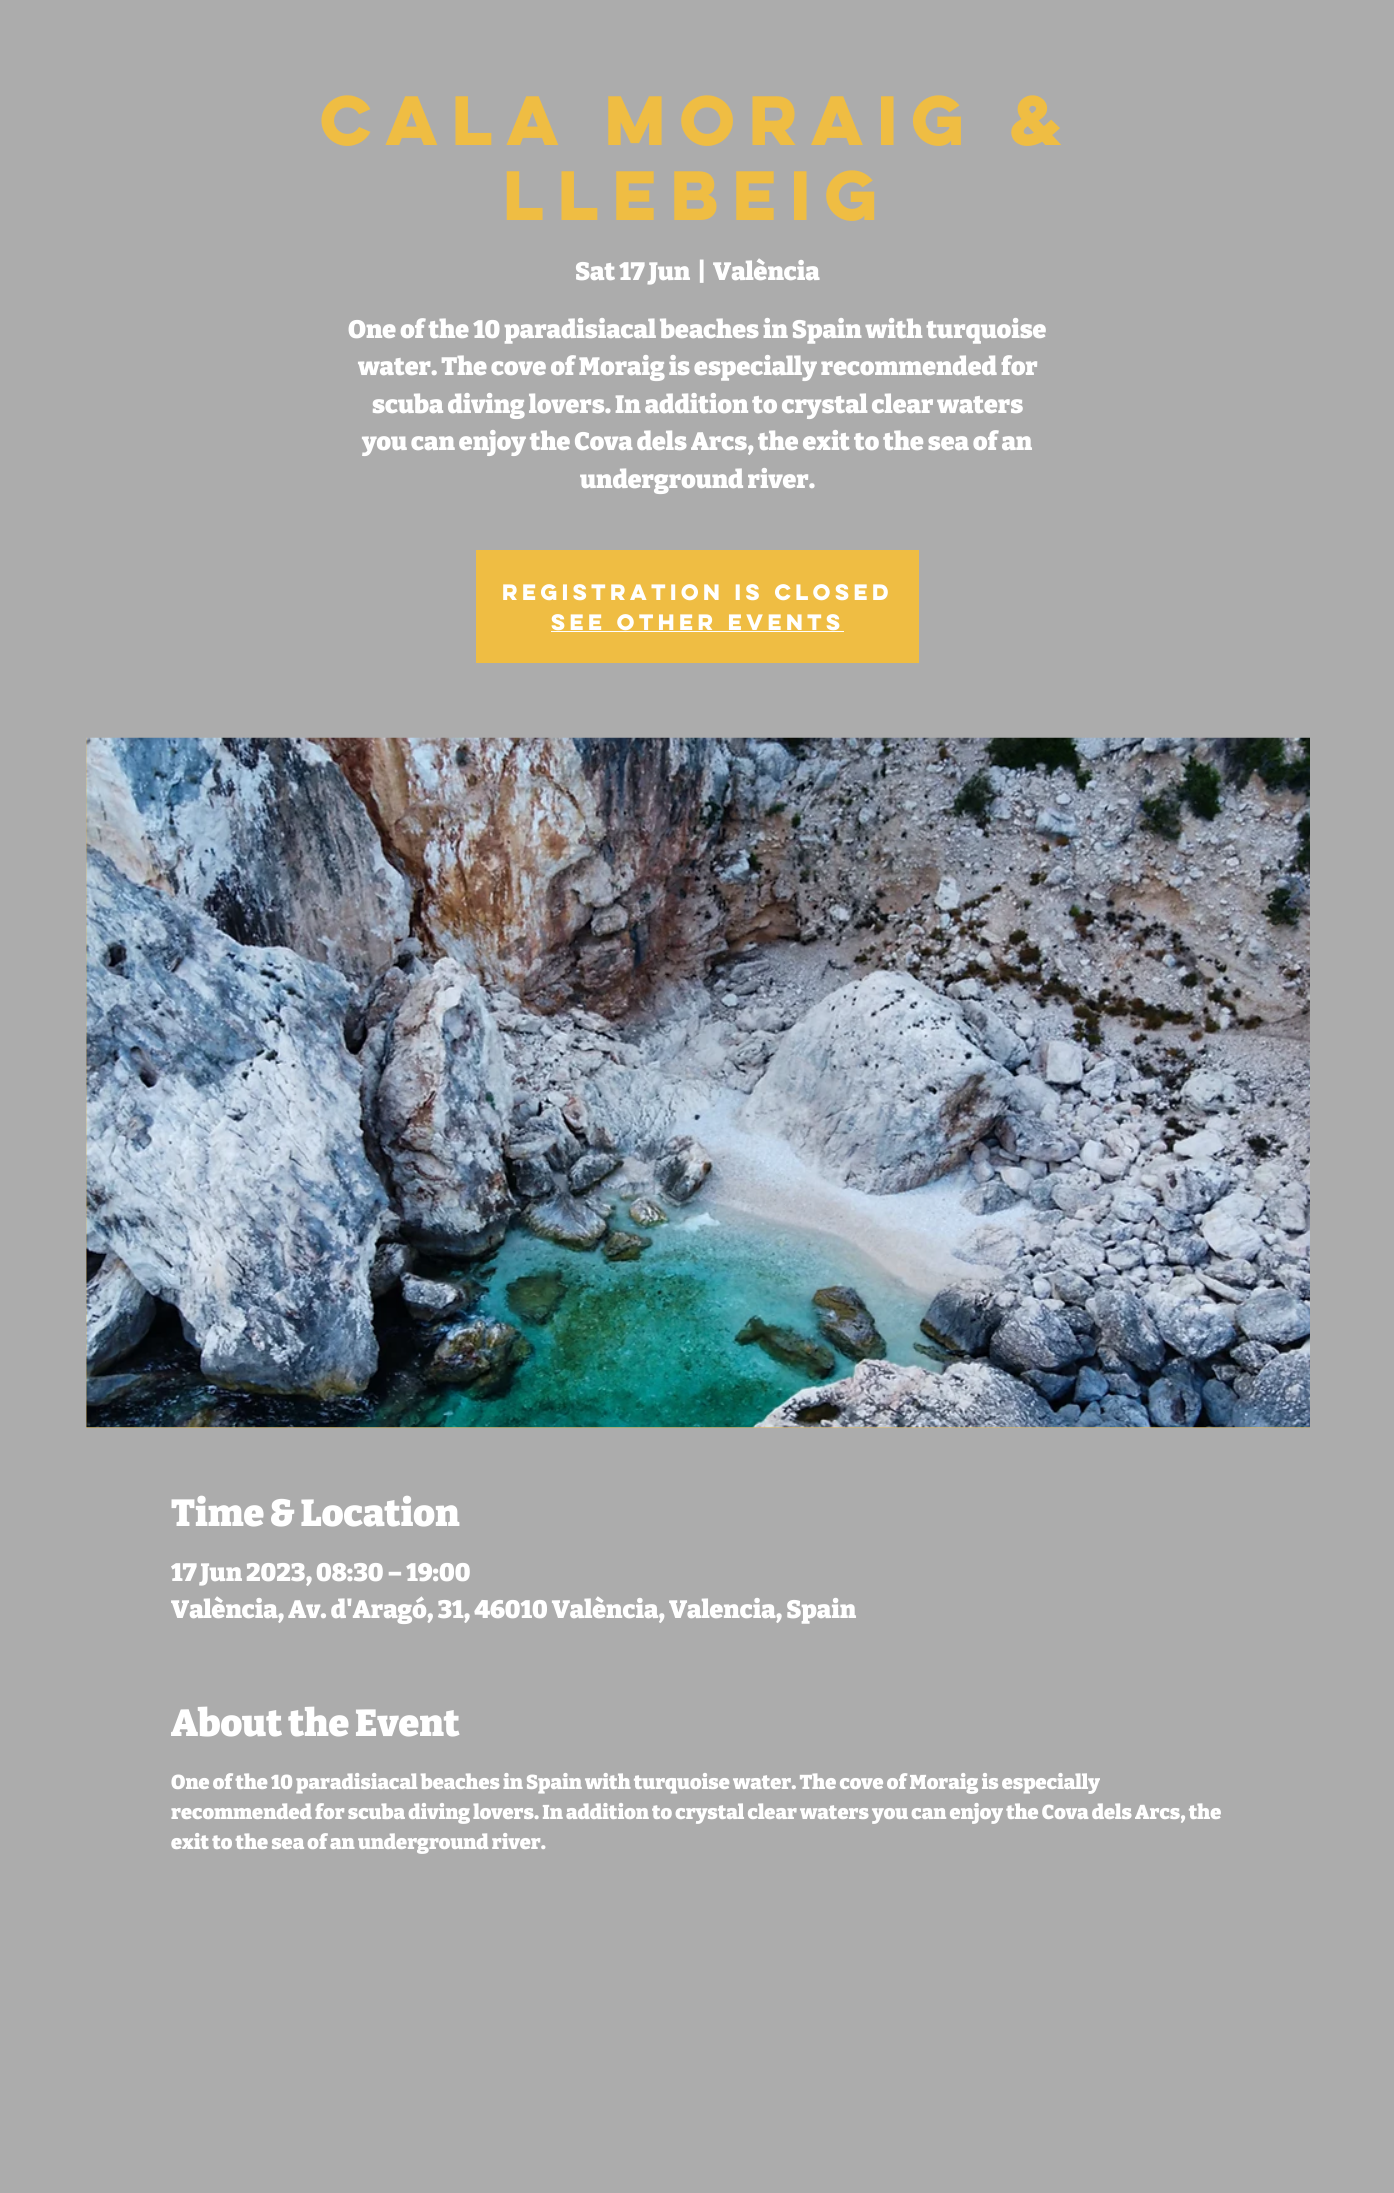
#include <cairo/cairo.h>
#include <math.h>
#include <stddef.h>

static cairo_t *cr;

static void use_color(int r, int g, int b) {
  cairo_set_source_rgb(cr, r / 255.0, g / 255.0, b / 255.0);
}

static void text(double x, double y, const char *s, const char *family, double size, int italic, int bold, int r, int g, int b) {
  cairo_select_font_face(cr, family, italic ? CAIRO_FONT_SLANT_ITALIC : CAIRO_FONT_SLANT_NORMAL,
    bold ? CAIRO_FONT_WEIGHT_BOLD : CAIRO_FONT_WEIGHT_NORMAL);
  cairo_set_font_size(cr, size);
  use_color(r, g, b);
  cairo_move_to(cr, x, y);
  cairo_show_text(cr, s);
}

static void box(double x, double y, double w, double h, int r, int g, int b) {
  use_color(r, g, b);
  cairo_rectangle(cr, x, y, w, h);
  cairo_fill(cr);
}

static void picture(const char *path, double x, double y, double w, double h) {
  cairo_surface_t *image = cairo_image_surface_create_from_png(path);
  cairo_save(cr);
  cairo_set_source_surface(cr, image, x, y);
  cairo_rectangle(cr, x, y, w, h);
  cairo_fill(cr);
  cairo_restore(cr);
  cairo_surface_destroy(image);
}

static void draw(void) {
  use_color(172, 172, 172);
  cairo_paint(cr);
  box(476, 550, 443, 113, 239, 189, 67);
  box(551, 631, 293, 1, 255, 255, 255);
  box(86, 738, 1224, 690, 211, 183, 113);
  picture("img_01.png", 86, 737, 1224, 691);
  text(320, 145, "Cala Moraig &", "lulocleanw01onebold", 62.5, 0, 1, 239, 189, 67);
  text(503, 220, "Llebeig", "lulocleanw01onebold", 62.5, 0, 1, 239, 189, 67);
  text(575, 280, "Sat 17 Jun", "Bitter Black", 25, 0, 0, 255, 255, 255);
  text(698, 280, "|", "Bitter Black", 25, 0, 0, 255, 255, 255);
  text(713, 280, "València", "Bitter Black", 25, 0, 0, 255, 255, 255);
  text(348, 338, "One of the 10 paradisiacal beaches in Spain with turquoise", "Bitter Black", 25, 0, 0, 255, 255, 255);
  text(358, 375, "water. The cove of Moraig is especially recommended for", "Bitter Black", 25, 0, 0, 255, 255, 255);
  text(372, 413, "scuba diving lovers. In addition to crystal clear waters", "Bitter Black", 25, 0, 0, 255, 255, 255);
  text(362, 450, "you can enjoy the Cova dels Arcs, the exit to the sea of an", "Bitter Black", 25, 0, 0, 255, 255, 255);
  text(580, 488, "underground river.", "Bitter Black", 25, 0, 0, 255, 255, 255);
  text(502, 600, "Registration is Closed", "lulocleanw01onebold", 20, 0, 1, 255, 255, 255);
  text(551, 630, "See other events", "lulocleanw01onebold", 20, 0, 1, 255, 255, 255);
  text(171, 1526, "Time & Location", "Bitter Black", 37.5, 0, 0, 255, 255, 255);
  text(171, 1581, "17 Jun 2023, 08:30 – 19:00", "Bitter Black", 25, 0, 0, 255, 255, 255);
  text(171, 1618, "València, Av. d'Aragó, 31, 46010 València, Valencia, Spain", "Bitter Black", 25, 0, 0, 255, 255, 255);
  text(171, 1736, "About the Event", "Bitter Black", 37.5, 0, 0, 255, 255, 255);
  text(171, 1789, "One of the 10 paradisiacal beaches in Spain with turquoise water. The cove of Moraig is especially", "Bitter Black", 20, 0, 0, 255, 255, 255);
  text(171, 1819, "recommended for scuba diving lovers. In addition to crystal clear waters you can enjoy the Cova dels Arcs, the", "Bitter Black", 20, 0, 0, 255, 255, 255);
  text(171, 1849, "exit to the sea of an underground river.", "Bitter Black", 20, 0, 0, 255, 255, 255);
}

int main(void) {
  cairo_surface_t *surface = cairo_image_surface_create(CAIRO_FORMAT_RGB24, 1394, 2193);
  cr = cairo_create(surface);
  cairo_font_options_t *options = cairo_font_options_create();
  cairo_font_options_set_hint_metrics(options, CAIRO_HINT_METRICS_OFF);
  cairo_font_options_set_hint_style(options, CAIRO_HINT_STYLE_NONE);
  cairo_set_font_options(cr, options);
  cairo_set_miter_limit(cr, 4);
  draw();
  cairo_surface_write_to_png(surface, "out.png");
  cairo_font_options_destroy(options);
  cairo_destroy(cr);
  cairo_surface_destroy(surface);
  return 0;
}
